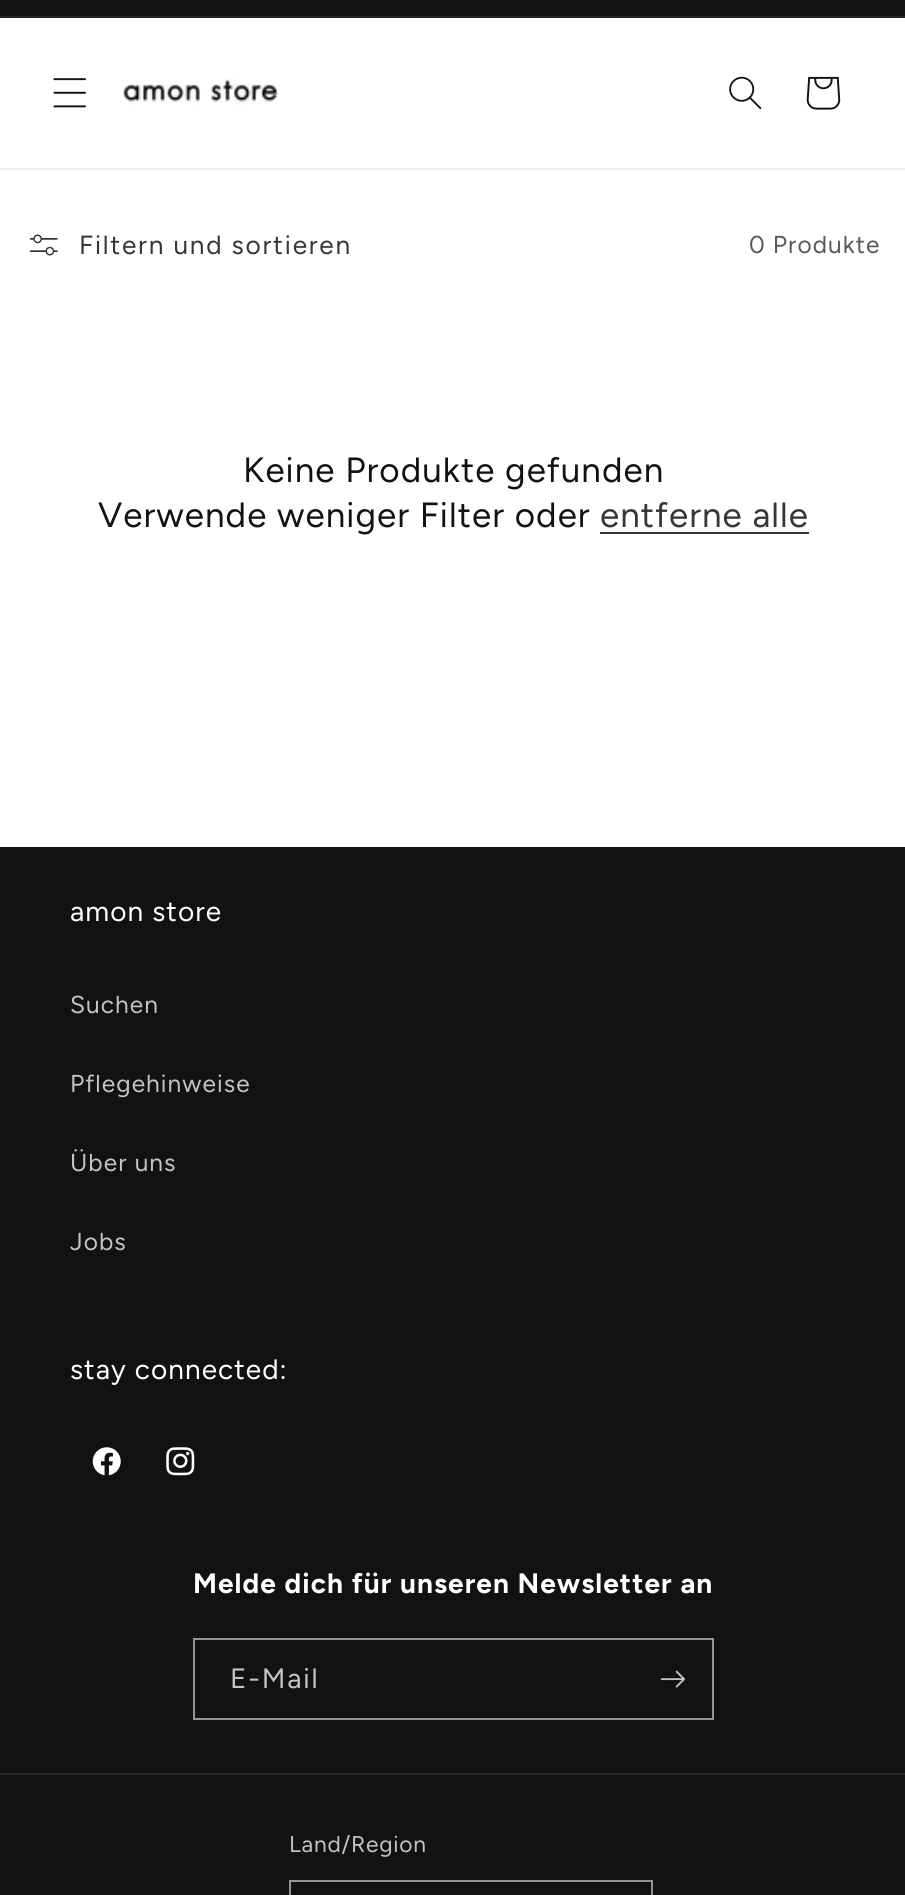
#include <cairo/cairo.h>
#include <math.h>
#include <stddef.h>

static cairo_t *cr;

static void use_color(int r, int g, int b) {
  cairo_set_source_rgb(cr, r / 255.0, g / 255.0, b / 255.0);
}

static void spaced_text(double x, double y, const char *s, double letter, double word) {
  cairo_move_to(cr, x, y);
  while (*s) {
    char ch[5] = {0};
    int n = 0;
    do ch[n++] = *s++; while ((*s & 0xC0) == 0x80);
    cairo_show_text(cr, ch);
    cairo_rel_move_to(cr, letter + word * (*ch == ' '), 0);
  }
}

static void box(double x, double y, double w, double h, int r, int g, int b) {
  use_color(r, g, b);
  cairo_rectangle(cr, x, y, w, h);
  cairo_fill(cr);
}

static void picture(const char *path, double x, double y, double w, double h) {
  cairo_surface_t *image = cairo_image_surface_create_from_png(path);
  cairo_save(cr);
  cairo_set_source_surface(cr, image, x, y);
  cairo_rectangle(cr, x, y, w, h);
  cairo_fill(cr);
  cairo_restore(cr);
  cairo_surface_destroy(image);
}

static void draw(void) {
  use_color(255, 255, 255);
  cairo_paint(cr);
  box(0, 0, 905, 16, 18, 18, 18);
  box(0, 16, 905, 2, 37, 37, 37);
  box(0, 168, 905, 2, 236, 236, 236);
  picture("img_01.png", 53, 78, 33, 30);
  picture("img_02.png", 122, 77, 157, 28);
  picture("img_03.png", 729, 76, 33, 34);
  picture("img_04.png", 806, 76, 35, 34);
  picture("img_05.png", 29, 234, 29, 22);
  box(600, 532, 209, 2, 54, 54, 54);
  box(0, 847, 905, 1048, 18, 18, 18);
  picture("img_06.png", 92, 1447, 29, 29);
  picture("img_07.png", 166, 1447, 29, 29);
  cairo_rectangle(cr, 194, 1639, 519, 80);
  use_color(148, 148, 148);
  cairo_stroke(cr);
  picture("img_08.png", 660, 1670, 25, 18);
  box(0, 1773, 905, 2, 37, 37, 37);
  cairo_rectangle(cr, 290, 1881, 362, 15);
  use_color(148, 148, 148);
  cairo_stroke(cr);
  cairo_select_font_face(cr, "Figtree", CAIRO_FONT_SLANT_NORMAL, CAIRO_FONT_WEIGHT_NORMAL);
  cairo_set_font_size(cr, 26.25);
  use_color(54, 54, 54);
  spaced_text(79, 254, "Filtern und sortieren", 1.75, 0);
  cairo_set_font_size(cr, 24.5);
  use_color(89, 89, 89);
  spaced_text(749, 253, "0 Produkte", 1.05, 0);
  cairo_set_font_size(cr, 35);
  use_color(18, 18, 18);
  spaced_text(243, 482, "Keine Produkte gefunden", 1.05, 0);
  spaced_text(98, 527, "Verwende weniger Filter oder", 1.05, 0);
  use_color(54, 54, 54);
  spaced_text(600, 527, "entferne alle", 1.05, 0);
  cairo_set_font_size(cr, 28);
  use_color(255, 255, 255);
  spaced_text(70, 921, "amon store", 1.05, 0);
  cairo_set_font_size(cr, 24.5);
  use_color(196, 196, 196);
  spaced_text(70, 1013, "Suchen", 1.05, 0);
  spaced_text(70, 1092, "Pflegehinweise", 1.05, 0);
  spaced_text(70, 1171, "Über uns", 1.05, 0);
  spaced_text(70, 1250, "Jobs", 1.05, 0);
  cairo_set_font_size(cr, 28);
  use_color(255, 255, 255);
  spaced_text(70, 1379, "stay connected:", 1.05, 0);
  cairo_select_font_face(cr, "Figtree", CAIRO_FONT_SLANT_NORMAL, CAIRO_FONT_WEIGHT_BOLD);
  spaced_text(193, 1593, "Melde dich für unseren Newsletter an", 1.05, 0);
  cairo_select_font_face(cr, "Figtree", CAIRO_FONT_SLANT_NORMAL, CAIRO_FONT_WEIGHT_NORMAL);
  use_color(196, 196, 196);
  spaced_text(230, 1688, "E-Mail", 1.75, 0);
  cairo_set_font_size(cr, 22.75);
  spaced_text(289, 1852, "Land/Region", 0.75, 0);
}

int main(void) {
  cairo_surface_t *surface = cairo_image_surface_create(CAIRO_FORMAT_RGB24, 905, 1895);
  cr = cairo_create(surface);
  cairo_font_options_t *options = cairo_font_options_create();
  cairo_font_options_set_hint_metrics(options, CAIRO_HINT_METRICS_OFF);
  cairo_font_options_set_hint_style(options, CAIRO_HINT_STYLE_NONE);
  cairo_set_font_options(cr, options);
  cairo_set_miter_limit(cr, 4);
  draw();
  cairo_surface_write_to_png(surface, "out.png");
  cairo_font_options_destroy(options);
  cairo_destroy(cr);
  cairo_surface_destroy(surface);
  return 0;
}
